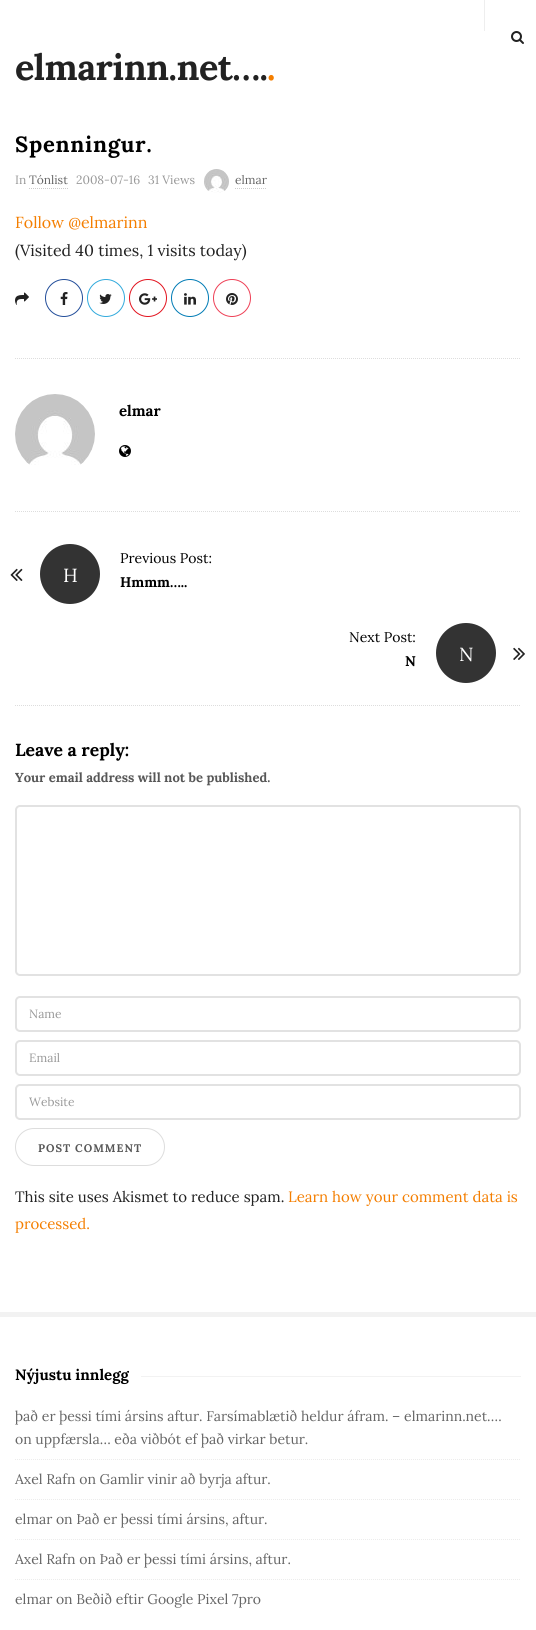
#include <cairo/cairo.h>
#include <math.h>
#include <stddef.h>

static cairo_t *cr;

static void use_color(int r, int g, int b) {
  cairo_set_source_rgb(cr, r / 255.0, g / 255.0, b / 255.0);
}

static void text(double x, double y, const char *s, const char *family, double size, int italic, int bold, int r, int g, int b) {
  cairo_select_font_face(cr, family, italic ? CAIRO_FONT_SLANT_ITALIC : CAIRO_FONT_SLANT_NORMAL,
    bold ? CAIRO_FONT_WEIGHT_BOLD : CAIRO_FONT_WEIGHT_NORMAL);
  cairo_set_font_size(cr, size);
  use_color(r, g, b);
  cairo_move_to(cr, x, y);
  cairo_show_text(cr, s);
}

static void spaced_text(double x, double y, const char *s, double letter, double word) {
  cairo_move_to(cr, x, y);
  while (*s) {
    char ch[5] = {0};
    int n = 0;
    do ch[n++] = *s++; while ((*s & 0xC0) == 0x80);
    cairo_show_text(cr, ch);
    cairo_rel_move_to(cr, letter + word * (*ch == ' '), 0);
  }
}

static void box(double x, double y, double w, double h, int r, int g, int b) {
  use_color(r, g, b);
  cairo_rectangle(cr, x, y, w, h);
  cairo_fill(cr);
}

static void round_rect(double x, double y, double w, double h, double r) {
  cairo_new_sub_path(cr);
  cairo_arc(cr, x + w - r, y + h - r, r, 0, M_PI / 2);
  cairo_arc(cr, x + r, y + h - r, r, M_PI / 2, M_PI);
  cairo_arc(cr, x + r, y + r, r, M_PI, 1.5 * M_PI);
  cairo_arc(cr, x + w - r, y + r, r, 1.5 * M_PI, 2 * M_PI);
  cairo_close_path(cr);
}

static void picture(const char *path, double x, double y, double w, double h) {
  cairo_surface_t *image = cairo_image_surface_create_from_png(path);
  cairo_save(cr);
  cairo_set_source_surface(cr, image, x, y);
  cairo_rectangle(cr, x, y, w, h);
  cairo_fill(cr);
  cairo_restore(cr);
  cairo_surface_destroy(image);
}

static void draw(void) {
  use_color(255, 255, 255);
  cairo_paint(cr);
  box(484, 0, 1, 31, 238, 238, 238);
  picture("img_01.png", 511, 31, 13, 13);
  cairo_new_path(cr);
  cairo_move_to(cr, 15, 358.5);
  cairo_line_to(cr, 521, 358.5);
  use_color(221, 221, 221);
  cairo_set_line_width(cr, 1);
  cairo_set_dash(cr, (double[]){1, 1}, 2, 0);
  cairo_stroke(cr);
  cairo_new_path(cr);
  cairo_move_to(cr, 29, 188.5);
  cairo_line_to(cr, 68, 188.5);
  use_color(204, 204, 204);
  cairo_stroke(cr);
  picture("img_02.png", 204, 169, 25, 24);
  cairo_new_path(cr);
  cairo_move_to(cr, 235, 188.5);
  cairo_line_to(cr, 267, 188.5);
  cairo_stroke(cr);
  picture("img_03.png", 15, 292, 14, 13);
  cairo_arc(cr, 64, 298, 18.5, 0, 2 * M_PI);
  use_color(35, 78, 154);
  cairo_set_dash(cr, NULL, 0, 0);
  cairo_stroke(cr);
  picture("img_04.png", 60, 292, 8, 13);
  cairo_arc(cr, 106, 298, 18.5, 0, 2 * M_PI);
  use_color(50, 170, 220);
  cairo_stroke(cr);
  picture("img_05.png", 99, 294, 13, 10);
  cairo_arc(cr, 148, 298, 18.5, 0, 2 * M_PI);
  use_color(226, 19, 30);
  cairo_stroke(cr);
  picture("img_06.png", 139, 293, 18, 12);
  cairo_arc(cr, 190, 298, 18.5, 0, 2 * M_PI);
  use_color(0, 123, 181);
  cairo_stroke(cr);
  picture("img_07.png", 184, 293, 12, 12);
  cairo_arc(cr, 232, 298, 18.5, 0, 2 * M_PI);
  use_color(238, 64, 86);
  cairo_stroke(cr);
  picture("img_08.png", 226, 293, 12, 12);
  cairo_new_path(cr);
  cairo_move_to(cr, 15, 511.5);
  cairo_line_to(cr, 521, 511.5);
  use_color(221, 221, 221);
  cairo_set_dash(cr, (double[]){1, 1}, 2, 0);
  cairo_stroke(cr);
  picture("img_09.png", 15, 394, 80, 71);
  picture("img_10.png", 119, 445, 12, 12);
  cairo_new_path(cr);
  cairo_move_to(cr, 15, 705.5);
  cairo_line_to(cr, 521, 705.5);
  cairo_stroke(cr);
  picture("img_11.png", 10, 568, 13, 13);
  use_color(51, 51, 51);
  cairo_arc(cr, 70, 574, 30, 0, 2 * M_PI);
  cairo_fill(cr);
  cairo_arc(cr, 466, 653, 30, 0, 2 * M_PI);
  cairo_fill(cr);
  picture("img_12.png", 513, 647, 12, 13);
  round_rect(16, 806, 504, 169, 4);
  use_color(226, 226, 226);
  cairo_set_line_width(cr, 2);
  cairo_set_dash(cr, NULL, 0, 0);
  cairo_stroke(cr);
  round_rect(16, 997, 504, 34, 4);
  cairo_stroke(cr);
  round_rect(16, 1041, 504, 34, 4);
  cairo_stroke(cr);
  round_rect(16, 1085, 504, 34, 4);
  cairo_stroke(cr);
  round_rect(15.5, 1128.5, 149, 37, 18.5);
  use_color(221, 221, 221);
  cairo_set_line_width(cr, 1);
  cairo_stroke(cr);
  box(0, 1312, 536, 5, 242, 242, 242);
  box(141, 1376, 380, 1, 242, 242, 242);
  cairo_new_path(cr);
  cairo_move_to(cr, 15, 1459.5);
  cairo_line_to(cr, 521, 1459.5);
  use_color(236, 236, 236);
  cairo_set_dash(cr, (double[]){1, 1}, 2, 0);
  cairo_stroke(cr);
  cairo_new_path(cr);
  cairo_move_to(cr, 15, 1499.5);
  cairo_line_to(cr, 521, 1499.5);
  cairo_stroke(cr);
  cairo_new_path(cr);
  cairo_move_to(cr, 15, 1539.5);
  cairo_line_to(cr, 521, 1539.5);
  cairo_stroke(cr);
  cairo_new_path(cr);
  cairo_move_to(cr, 15, 1579.5);
  cairo_line_to(cr, 521, 1579.5);
  cairo_stroke(cr);
  cairo_select_font_face(cr, "Lora", CAIRO_FONT_SLANT_NORMAL, CAIRO_FONT_WEIGHT_BOLD);
  cairo_set_font_size(cr, 36);
  use_color(34, 34, 34);
  spaced_text(15, 80, "elmarinn.net….", -0.5, 0);
  use_color(244, 126, 0);
  spaced_text(267, 80, ".", -0.5, 0);
  cairo_set_font_size(cr, 22);
  use_color(0, 0, 0);
  spaced_text(15, 152, "Spenningur.", 0.75, 0);
  text(15, 184, "In", "Lora", 12, 0, 0, 153, 153, 153);
  text(29, 184, "Tónlist", "Lora", 12, 0, 0, 102, 102, 102);
  text(76, 184, "2008-07-16", "Lora", 12, 0, 0, 153, 153, 153);
  text(148, 184, "31 Views", "Lora", 12, 0, 0, 153, 153, 153);
  text(235, 184, "elmar", "Lora", 12, 0, 0, 102, 102, 102);
  text(15, 228, "Follow @elmarinn", "Lora", 16, 0, 0, 244, 126, 0);
  text(15, 256, "(Visited 40 times, 1 visits today)", "Lora", 16, 0, 0, 34, 34, 34);
  text(119, 416, "elmar", "Lora", 15, 0, 1, 0, 0, 0);
  text(63, 582, "H", "Lora", 19, 0, 0, 255, 255, 255);
  text(120, 563, "Previous Post:", "Lora", 14, 0, 0, 0, 0, 0);
  text(120, 587, "Hmmm…..", "Lora", 14, 0, 1, 0, 0, 0);
  text(349, 642, "Next Post:", "Lora", 14, 0, 0, 0, 0, 0);
  text(405, 666, "N", "Lora", 14, 0, 1, 0, 0, 0);
  text(459, 661, "N", "Lora", 19, 0, 0, 255, 255, 255);
  text(15, 756, "Leave a reply:", "Lora", 17.5, 0, 1, 0, 0, 0);
  text(15, 782, "Your email address will not be published.", "Lora", 13, 0, 1, 87, 87, 87);
  text(29, 1018, "Name", "Lora", 12, 0, 0, 153, 153, 153);
  text(29, 1062, "Email", "Lora", 12, 0, 0, 153, 153, 153);
  text(29, 1106, "Website", "Lora", 12, 0, 0, 153, 153, 153);
  cairo_select_font_face(cr, "Lora", CAIRO_FONT_SLANT_NORMAL, CAIRO_FONT_WEIGHT_BOLD);
  cairo_set_font_size(cr, 11);
  use_color(87, 87, 87);
  spaced_text(38, 1152, "POST COMMENT", 1, 0);
  text(15, 1202, "This site uses Akismet to reduce spam.", "Lora", 15, 0, 0, 34, 34, 34);
  text(288, 1202, "Learn how your comment data is", "Lora", 15, 0, 0, 244, 126, 0);
  text(15, 1229, "processed.", "Lora", 15, 0, 0, 244, 126, 0);
  text(15, 1380, "Nýjustu innlegg", "Lora", 15, 0, 1, 0, 0, 0);
  text(15, 1421, "það er þessi tími ársins aftur. Farsímablætið heldur áfram. – elmarinn.net….", "Lora", 14, 0, 0, 102, 102, 102);
  text(15, 1444, "on uppfærsla… eða viðbót ef það virkar betur.", "Lora", 14, 0, 0, 102, 102, 102);
  text(15, 1484, "Axel Rafn on Gamlir vinir að byrja aftur.", "Lora", 14, 0, 0, 102, 102, 102);
  text(15, 1524, "elmar on Það er þessi tími ársins, aftur.", "Lora", 14, 0, 0, 102, 102, 102);
  text(15, 1564, "Axel Rafn on Það er þessi tími ársins, aftur.", "Lora", 14, 0, 0, 102, 102, 102);
  text(15, 1604, "elmar on Beðið eftir Google Pixel 7pro", "Lora", 14, 0, 0, 102, 102, 102);
}

int main(void) {
  cairo_surface_t *surface = cairo_image_surface_create(CAIRO_FORMAT_RGB24, 536, 1630);
  cr = cairo_create(surface);
  cairo_font_options_t *options = cairo_font_options_create();
  cairo_font_options_set_hint_metrics(options, CAIRO_HINT_METRICS_OFF);
  cairo_font_options_set_hint_style(options, CAIRO_HINT_STYLE_NONE);
  cairo_set_font_options(cr, options);
  cairo_set_miter_limit(cr, 4);
  draw();
  cairo_surface_write_to_png(surface, "out.png");
  cairo_font_options_destroy(options);
  cairo_destroy(cr);
  cairo_surface_destroy(surface);
  return 0;
}
